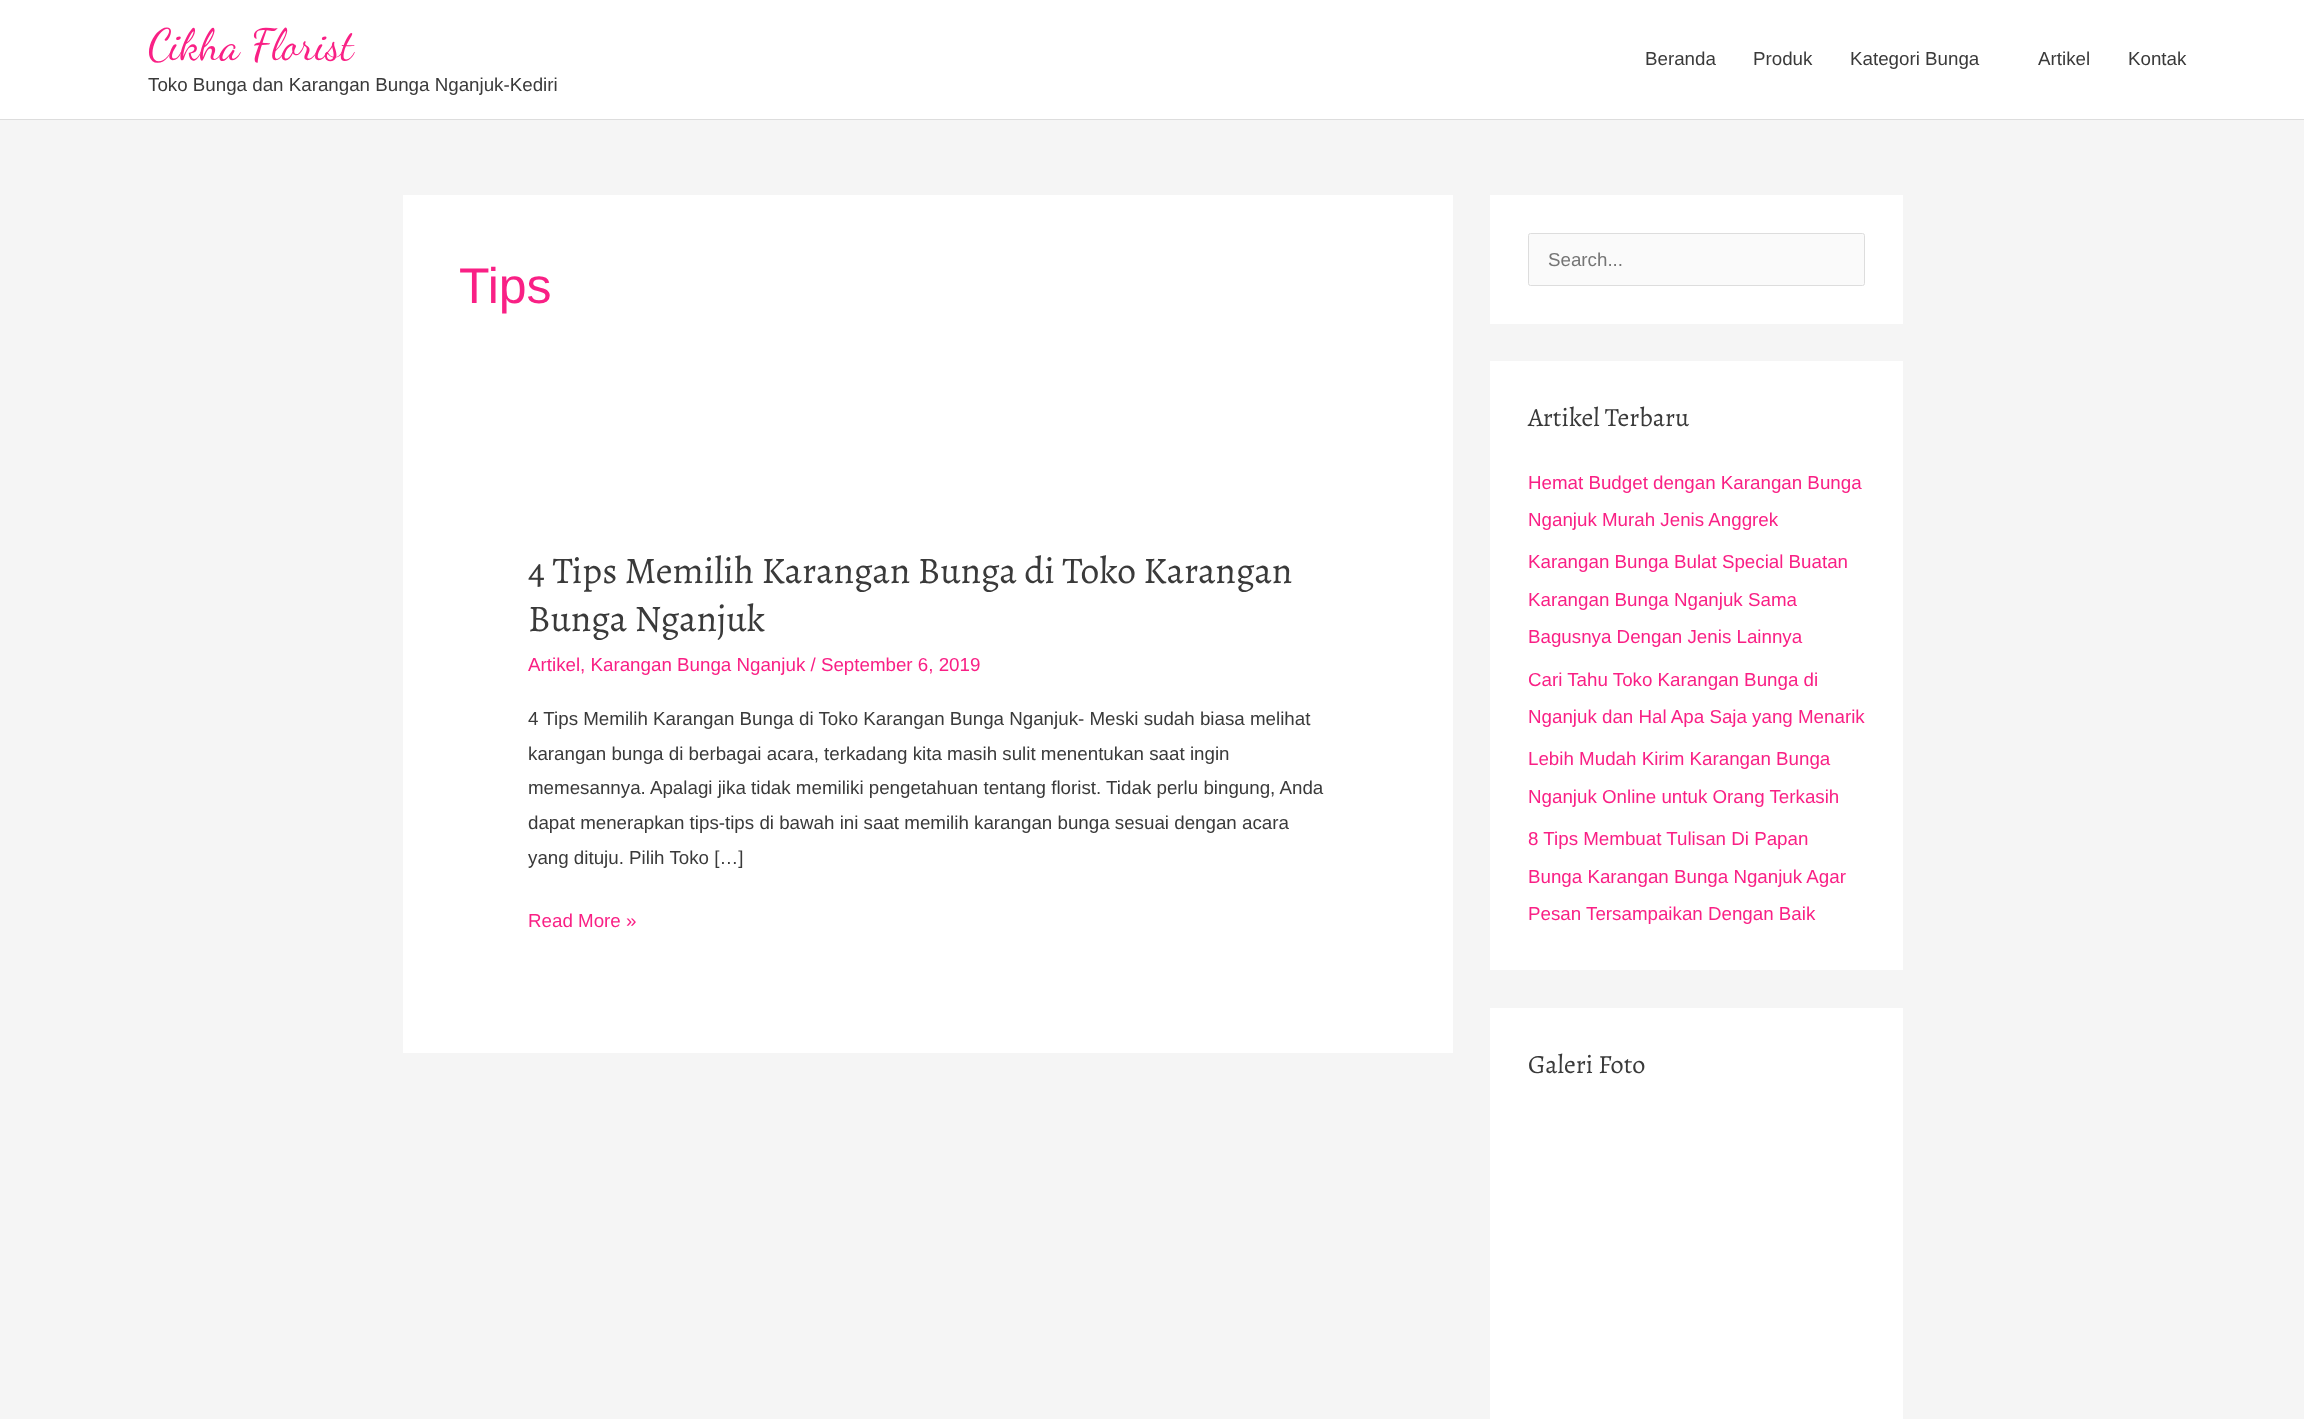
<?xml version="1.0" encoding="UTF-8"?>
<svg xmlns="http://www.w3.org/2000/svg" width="2304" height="1419">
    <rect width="100%" height="100%" fill="#F5F5F5"/>
    <rect x="0" y="0" width="2304" height="119" fill="#FFFFFF"/>
    <rect x="0" y="119" width="2304" height="1" fill="#DDDDDD"/>
    <text x="148" y="59" font-family="Dancing Script" font-size="43.75" fill="#F92085">Cikha Florist</text>
    <text x="148" y="91" font-family="Liberation Sans" font-size="18.75" fill="#3A3A3A">Toko Bunga dan Karangan Bunga Nganjuk-Kediri</text>
    <text x="1645" y="65" font-family="Liberation Sans" font-size="18.75" fill="#3A3A3A">Beranda</text>
    <text x="1753" y="65" font-family="Liberation Sans" font-size="18.75" fill="#3A3A3A">Produk</text>
    <text x="1850" y="65" font-family="Liberation Sans" font-size="18.75" fill="#3A3A3A">Kategori Bunga</text>
    <text x="2038" y="65" font-family="Liberation Sans" font-size="18.75" fill="#3A3A3A">Artikel</text>
    <text x="2128" y="65" font-family="Liberation Sans" font-size="18.75" fill="#3A3A3A">Kontak</text>
    <rect x="403" y="195" width="1050" height="858" fill="#FFFFFF"/>
    <text x="459" y="303" font-family="Liberation Sans" font-size="50" fill="#F92085">Tips</text>
    <text font-family="Alegreya" font-size="37.5" fill="#3A3A3A">
        <tspan x="528" y="583">4 Tips Memilih Karangan Bunga di Toko Karangan</tspan>
        <tspan x="528" y="631">Bunga Nganjuk</tspan>
    </text>
    <text x="528" y="671" font-family="Liberation Sans" font-size="18.75" fill="#F92085">Artikel, Karangan Bunga Nganjuk / September 6, 2019</text>
    <text font-family="Liberation Sans" font-size="18.75" fill="#3A3A3A">
        <tspan x="528" y="725">4 Tips Memilih Karangan Bunga di Toko Karangan Bunga Nganjuk- Meski sudah biasa melihat</tspan>
        <tspan x="528" y="760">karangan bunga di berbagai acara, terkadang kita masih sulit menentukan saat ingin</tspan>
        <tspan x="528" y="794">memesannya. Apalagi jika tidak memiliki pengetahuan tentang florist. Tidak perlu bingung, Anda</tspan>
        <tspan x="528" y="829">dapat menerapkan tips-tips di bawah ini saat memilih karangan bunga sesuai dengan acara</tspan>
        <tspan x="528" y="864">yang dituju. Pilih Toko […]</tspan>
    </text>
    <text x="528" y="927" font-family="Liberation Sans" font-size="18.75" fill="#F92085">Read More »</text>
    <rect x="1490" y="195" width="413" height="129" fill="#FFFFFF"/>
    <rect x="1528.5" y="233.5" width="336" height="52" rx="2" fill="#FAFAFA" stroke="#DDDDDD"/>
    <text x="1548" y="266" font-family="Liberation Sans" font-size="18.75" fill="#757575">Search...</text>
    <rect x="1490" y="361" width="413" height="609" fill="#FFFFFF"/>
    <text x="1528" y="426" font-family="Alegreya" font-size="26.25" fill="#3A3A3A">Artikel Terbaru</text>
    <text font-family="Liberation Sans" font-size="18.75" fill="#F92085">
        <tspan x="1528" y="489">Hemat Budget dengan Karangan Bunga</tspan>
        <tspan x="1528" y="526">Nganjuk Murah Jenis Anggrek</tspan>
    </text>
    <text x="1528" y="568" font-family="Liberation Sans" font-size="18.75" fill="#F92085">Karangan Bunga Bulat Special Buatan</text>
    <text font-family="Liberation Sans" font-size="18.75" fill="#F92085">
        <tspan x="1528" y="606">Karangan Bunga Nganjuk Sama</tspan>
        <tspan x="1528" y="643">Bagusnya Dengan Jenis Lainnya</tspan>
    </text>
    <text font-family="Liberation Sans" font-size="18.75" fill="#F92085">
        <tspan x="1528" y="686">Cari Tahu Toko Karangan Bunga di</tspan>
        <tspan x="1528" y="723">Nganjuk dan Hal Apa Saja yang Menarik</tspan>
    </text>
    <text x="1528" y="765" font-family="Liberation Sans" font-size="18.75" fill="#F92085">Lebih Mudah Kirim Karangan Bunga</text>
    <text x="1528" y="803" font-family="Liberation Sans" font-size="18.75" fill="#F92085">Nganjuk Online untuk Orang Terkasih</text>
    <text x="1528" y="845" font-family="Liberation Sans" font-size="18.75" fill="#F92085">8 Tips Membuat Tulisan Di Papan</text>
    <text font-family="Liberation Sans" font-size="18.75" fill="#F92085">
        <tspan x="1528" y="883">Bunga Karangan Bunga Nganjuk Agar</tspan>
        <tspan x="1528" y="920">Pesan Tersampaikan Dengan Baik</tspan>
    </text>
    <rect x="1490" y="1008" width="413" height="411" fill="#FFFFFF"/>
    <text x="1528" y="1073" font-family="Alegreya" font-size="26.25" fill="#3A3A3A">Galeri Foto</text>
</svg>
